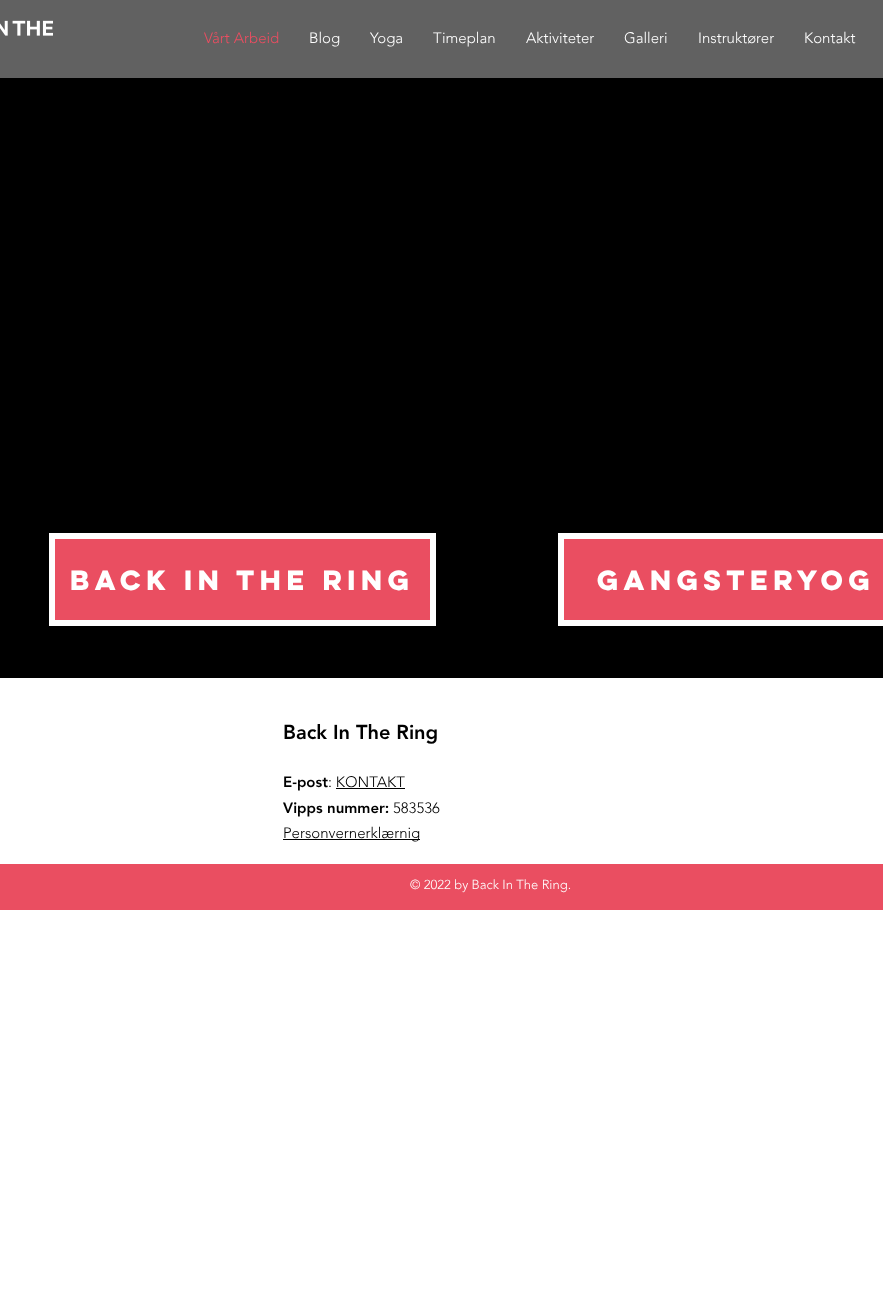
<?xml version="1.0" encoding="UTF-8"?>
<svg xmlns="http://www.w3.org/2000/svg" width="883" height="1293">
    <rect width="100%" height="100%" fill="#FFFFFF"/>
    <rect x="0" y="0" width="883" height="78" fill="#616161"/>
    <image x="0" y="20" width="53" height="16" href="img_01.png"/>
    <text x="204" y="43" font-family="'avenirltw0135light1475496'" font-size="15" font-weight="300" fill="#EA4E61">Vårt Arbeid</text>
    <text x="309" y="43" font-family="'avenirltw0135light1475496'" font-size="15" font-weight="300" fill="#FFFFFF">Blog</text>
    <text x="370" y="43" font-family="'avenirltw0135light1475496'" font-size="15" font-weight="300" fill="#FFFFFF">Yoga</text>
    <text x="433" y="43" font-family="'avenirltw0135light1475496'" font-size="15" font-weight="300" fill="#FFFFFF">Timeplan</text>
    <text x="526" y="43" font-family="'avenirltw0135light1475496'" font-size="15" font-weight="300" fill="#FFFFFF">Aktiviteter</text>
    <text x="624" y="43" font-family="'avenirltw0135light1475496'" font-size="15" font-weight="300" fill="#FFFFFF">Galleri</text>
    <text x="698" y="43" font-family="'avenirltw0135light1475496'" font-size="15" font-weight="300" fill="#FFFFFF">Instruktører</text>
    <text x="804" y="43" font-family="'avenirltw0135light1475496'" font-size="15" font-weight="300" fill="#FFFFFF">Kontakt</text>
    <rect x="0" y="78" width="883" height="600" fill="#000000"/>
    <rect x="52" y="536" width="381" height="87" fill="#EA4E61" stroke="#FFFFFF" stroke-width="6"/>
    <text x="70" y="590" font-family="'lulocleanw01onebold'" font-size="25" font-weight="700" fill="#FFFFFF">BACK IN THE RING</text>
    <rect x="561" y="536" width="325" height="87" fill="#EA4E61" stroke="#FFFFFF" stroke-width="6"/>
    <text x="597" y="590" font-family="'lulocleanw01onebold'" font-size="25" font-weight="700" fill="#FFFFFF">GANGSTERYOG</text>
    <text x="283" y="739" font-family="'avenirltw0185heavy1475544'" font-size="20" font-weight="900" fill="#000000">Back In The Ring</text>
    <text x="283" y="787" font-family="'avenirltw0185heavy1475544'" font-size="15" font-weight="900" fill="#000000">E-post</text>
    <text x="328" y="787" font-family="'avenirltw0135light1475496'" font-size="15" font-weight="300" fill="#000000">: KONTAKT</text>
    <rect x="336" y="788" width="69" height="1" fill="#000000"/>
    <text x="283" y="813" font-family="'avenirltw0185heavy1475544'" font-size="15" font-weight="900" fill="#000000">Vipps nummer:</text>
    <text x="393" y="813" font-family="'avenirltw0135light1475496'" font-size="15" font-weight="300" fill="#000000">583536</text>
    <rect x="283" y="839" width="137" height="1" fill="#000000"/>
    <text x="283" y="838" font-family="'avenirltw0135light1475496'" font-size="15" font-weight="300" fill="#000000">Personvernerklærnig</text>
    <rect x="0" y="864" width="883" height="46" fill="#EA4E61"/>
    <text x="410" y="889" font-family="'avenirltw0135light1475496'" font-size="13" font-weight="300" fill="#FFFFFF">© 2022 by Back In The Ring.</text>
</svg>
